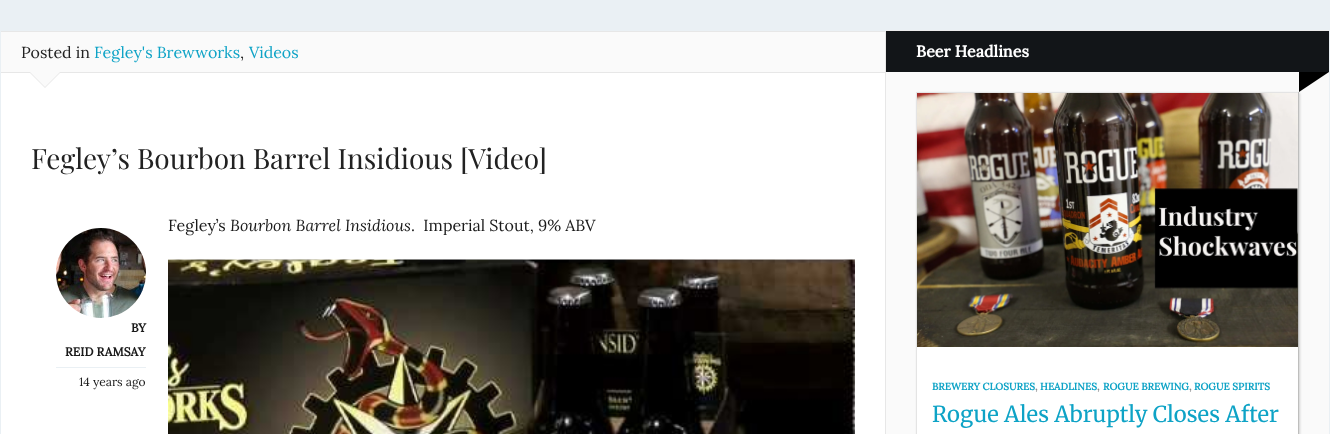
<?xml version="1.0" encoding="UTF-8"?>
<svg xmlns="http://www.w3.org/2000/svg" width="1330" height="434">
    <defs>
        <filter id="blur1" x="-50%" y="-200%" width="200%" height="500%"><feGaussianBlur stdDeviation="1"/></filter>
    </defs>
    <rect width="100%" height="100%" fill="#FFFFFF"/>
    <rect x="0.5" y="0.5" width="1329" height="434" fill="none" stroke="#EAF0F4"/>
    <rect x="1" y="1" width="1328" height="30" fill="#EAF0F4"/>
    <rect x="885" y="31" width="1" height="403" fill="#E7E7E7"/>
    <rect x="1" y="32" width="884" height="40" fill="#FAFAFA"/>
    <rect x="1" y="31" width="884" height="1" fill="#E7E7E7"/>
    <rect x="1" y="72" width="884" height="1" fill="#E7E7E7"/>
    <text x="21" y="58" font-family="Lora" font-size="16" fill="#222222">Posted in</text>
    <text x="94" y="58" font-family="Lora" font-size="16" fill="#0EA3C6">Fegley's Brewworks</text>
    <text x="240" y="58" font-family="Lora" font-size="16" fill="#222222">,</text>
    <text x="249" y="58" font-family="Lora" font-size="16" fill="#0EA3C6">Videos</text>
    <path d="M 29 72 H 61 L 45 88 Z" fill="#E7E7E7"/>
    <path d="M 30 72 H 60 L 45 87 Z" fill="#FAFAFA"/>
    <text x="31" y="169" font-family="Playfair Display" font-size="28" fill="#222222">Fegley’s Bourbon Barrel Insidious [Video]</text>
    <text x="168" y="231" font-family="Lora" font-size="16" fill="#1A1A1A">Fegley’s</text>
    <text x="230" y="231" font-family="Lora" font-size="16" font-style="italic" fill="#1A1A1A">Bourbon Barrel Insidious</text>
    <text x="411" y="231" font-family="Lora" font-size="16" fill="#1A1A1A" xml:space="preserve">.  Imperial Stout, 9% ABV</text>
    <image x="168" y="259" width="687" height="175" href="img_01.png"/>
    <rect x="168" y="259" width="687" height="1" fill="#FFFFFF" fill-opacity="0.5"/>
    <image x="56" y="228" width="90" height="90" href="img_02.png"/>
    <text x="131" y="332" font-family="Lora" font-size="12" font-weight="700" fill="#1A1A1A">BY</text>
    <text x="65" y="356" font-family="Lora" font-size="12" font-weight="700" fill="#1A1A1A">REID RAMSAY</text>
    <rect x="56" y="367" width="90" height="1" fill="#EAF0F4"/>
    <text x="79" y="386" font-family="Lora" font-size="12" fill="#1A1A1A">14 years ago</text>
    <rect x="886" y="72" width="443" height="362" fill="#FAFAFA"/>
    <rect x="886" y="31" width="443" height="41" fill="#121518"/>
    <rect x="886" y="30" width="443" height="1" fill="#ECECEC"/>
    <text x="916" y="57" font-family="Lora" font-size="16" font-weight="700" fill="#FFFFFF">Beer Headlines</text>
    <rect x="917" y="93" width="383" height="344" fill="#D0D0D0" filter="url(#blur1)"/>
    <path d="M 1299 92 V 72 H 1329 Z" fill="#000000"/>
    <rect x="917" y="347" width="381" height="87" fill="#FFFFFF"/>
    <rect x="916" y="92" width="383" height="1" fill="#E4E4E4"/>
    <rect x="1298" y="92" width="1" height="342" fill="#BEBEBD"/>
    <rect x="916" y="92" width="1" height="342" fill="#E4E4E4"/>
    <image x="917" y="93" width="381" height="254" href="img_03.png"/>
    <text x="932" y="390" font-family="Lora" font-size="10" font-weight="700" fill="#0EA3C6">BREWERY CLOSURES</text>
    <text x="1035" y="390" font-family="Lora" font-size="10" font-weight="700" fill="#8A8C8E">,</text>
    <text x="1040" y="390" font-family="Lora" font-size="10" font-weight="700" fill="#0EA3C6">HEADLINES</text>
    <text x="1097" y="390" font-family="Lora" font-size="10" font-weight="700" fill="#8A8C8E">,</text>
    <text x="1103" y="390" font-family="Lora" font-size="10" font-weight="700" fill="#0EA3C6">ROGUE BREWING</text>
    <text x="1189" y="390" font-family="Lora" font-size="10" font-weight="700" fill="#8A8C8E">,</text>
    <text x="1194" y="390" font-family="Lora" font-size="10" font-weight="700" fill="#0EA3C6">ROGUE SPIRITS</text>
    <text x="932" y="422" font-family="Merriweather" font-size="22" fill="#0EA3C6">Rogue Ales Abruptly Closes After</text>
</svg>
